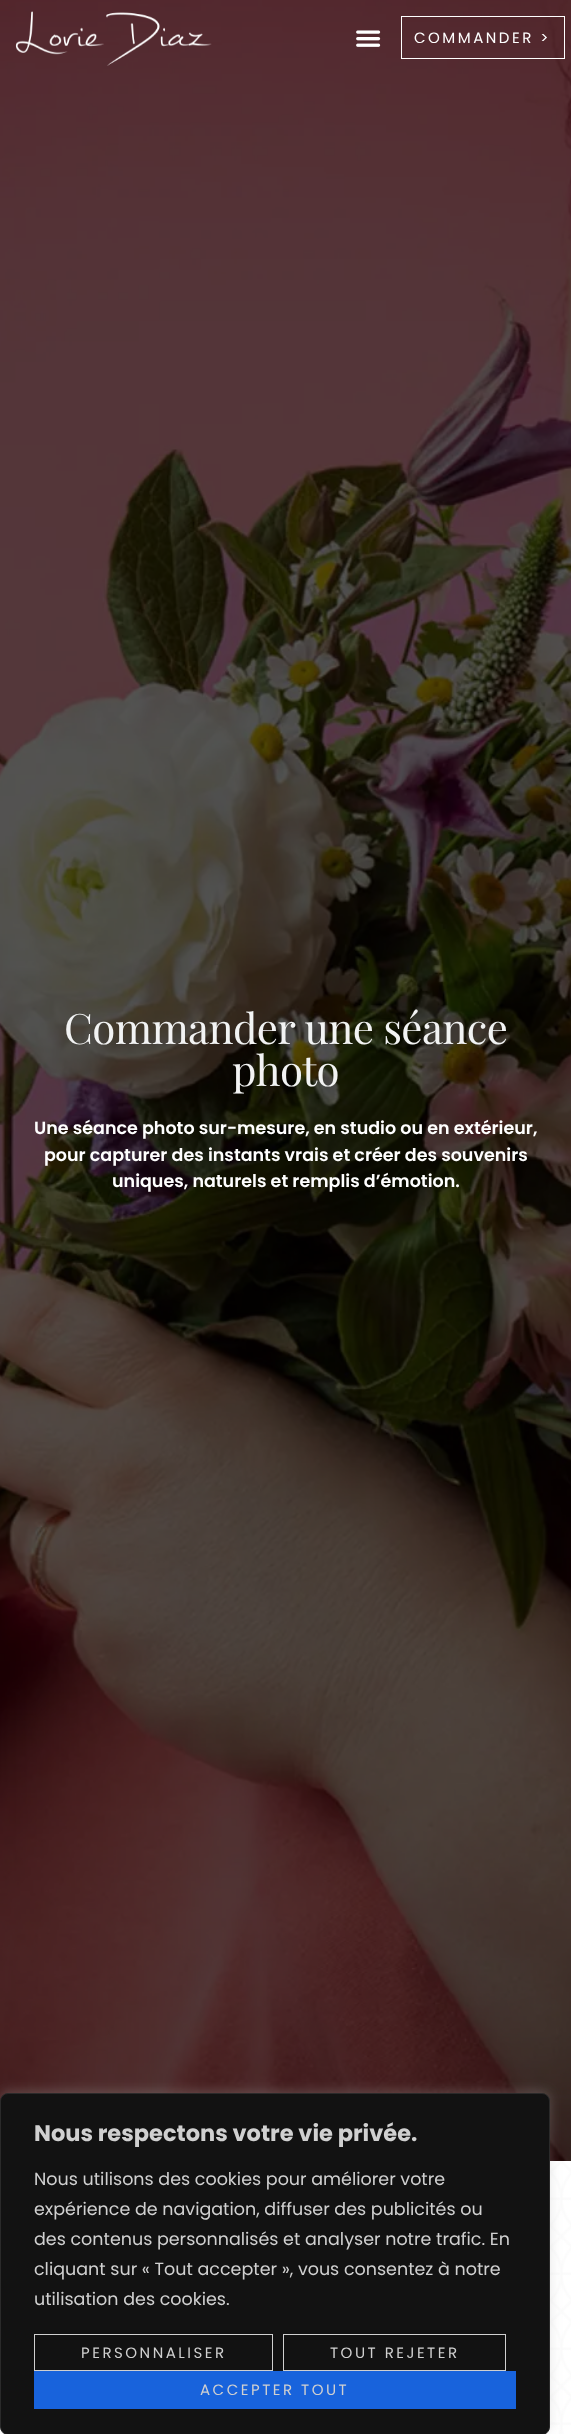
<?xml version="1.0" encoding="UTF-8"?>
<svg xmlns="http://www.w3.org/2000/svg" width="571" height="2434">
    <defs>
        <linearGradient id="g1" gradientUnits="userSpaceOnUse" x1="-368" y1="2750" x2="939" y2="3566"><stop offset="1" stop-color="#FFFFFF" stop-opacity="0.97"/><stop offset="1" stop-color="#FFFFFF" stop-opacity="0.75"/></linearGradient>
        <filter id="blur1" x="-50%" y="-200%" width="200%" height="500%"><feGaussianBlur stdDeviation="6"/></filter>
    </defs>
    <rect width="100%" height="100%" fill="#FFFFFF"/>
    <image x="0" y="0" width="571" height="2161" href="img_03.png"/>
    <image x="15" y="11" width="197" height="55" href="img_01.png"/>
    <image x="356" y="30" width="25" height="17" href="img_02.png"/>
    <rect x="401.5" y="16.5" width="163" height="42" fill="none" stroke="#FFFFFF"/>
    <text x="414" y="43" font-family="Poppins" font-size="15" letter-spacing="2.5" fill="#FFFFFF">COMMANDER &gt;</text>
    <text x="64" y="1044" font-family="Playfair Display" font-size="42" letter-spacing="-0.6" fill="#F2F3F3">Commander une séance</text>
    <text x="232" y="1086" font-family="Playfair Display" font-size="42" letter-spacing="-0.6" fill="#F2F3F3">photo</text>
    <text x="34" y="1134" font-family="Poppins" font-size="17.5" font-weight="600" fill="#FFFFFF">Une séance photo sur-mesure, en studio ou en extérieur,</text>
    <text x="44" y="1161" font-family="Poppins" font-size="17.5" font-weight="600" fill="#FFFFFF">pour capturer des instants vrais et créer des souvenirs</text>
    <text x="112" y="1187" font-family="Poppins" font-size="17.5" font-weight="600" fill="#FFFFFF">uniques, naturels et remplis d’émotion.</text>
    <image x="0" y="2161" width="571" height="273" href="img_04.png"/>
    <rect x="0" y="2161" width="571" height="273" fill="url(#g1)"/>
    <rect x="0" y="2091" width="550" height="343" rx="8" fill="#ACABAB" fill-opacity="0.3" filter="url(#blur1)"/>
    <rect x="0.5" y="2093.5" width="549" height="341" rx="7.5" fill="#121212" stroke="#2A2A2A"/>
    <text x="34" y="2141" font-family="Poppins" font-size="22.5" font-weight="700" fill="#D0D0D0">Nous respectons votre vie privée.</text>
    <text font-family="Poppins" font-size="17.5" fill="#D0D0D0">
        <tspan x="34" y="2185">Nous utilisons des cookies pour améliorer votre</tspan>
        <tspan x="34" y="2215">expérience de navigation, diffuser des publicités ou</tspan>
        <tspan x="34" y="2245">des contenus personnalisés et analyser notre trafic. En</tspan>
        <tspan x="34" y="2275">cliquant sur « Tout accepter », vous consentez à notre</tspan>
        <tspan x="34" y="2305">utilisation des cookies.</tspan>
    </text>
    <rect x="34.5" y="2334.5" width="238" height="36" fill="none" stroke="#D0D0D0"/>
    <text x="81" y="2358" font-family="Poppins" font-size="15" letter-spacing="2.5" fill="#D0D0D0">PERSONNALISER</text>
    <rect x="283.5" y="2334.5" width="222" height="36" fill="none" stroke="#D0D0D0"/>
    <text x="330" y="2358" font-family="Poppins" font-size="15" letter-spacing="2.5" fill="#D0D0D0">TOUT REJETER</text>
    <rect x="34" y="2371" width="482" height="38" fill="#1863DC"/>
    <text x="200" y="2395" font-family="Poppins" font-size="15" letter-spacing="2.5" fill="#D0D0D0">ACCEPTER TOUT</text>
</svg>
